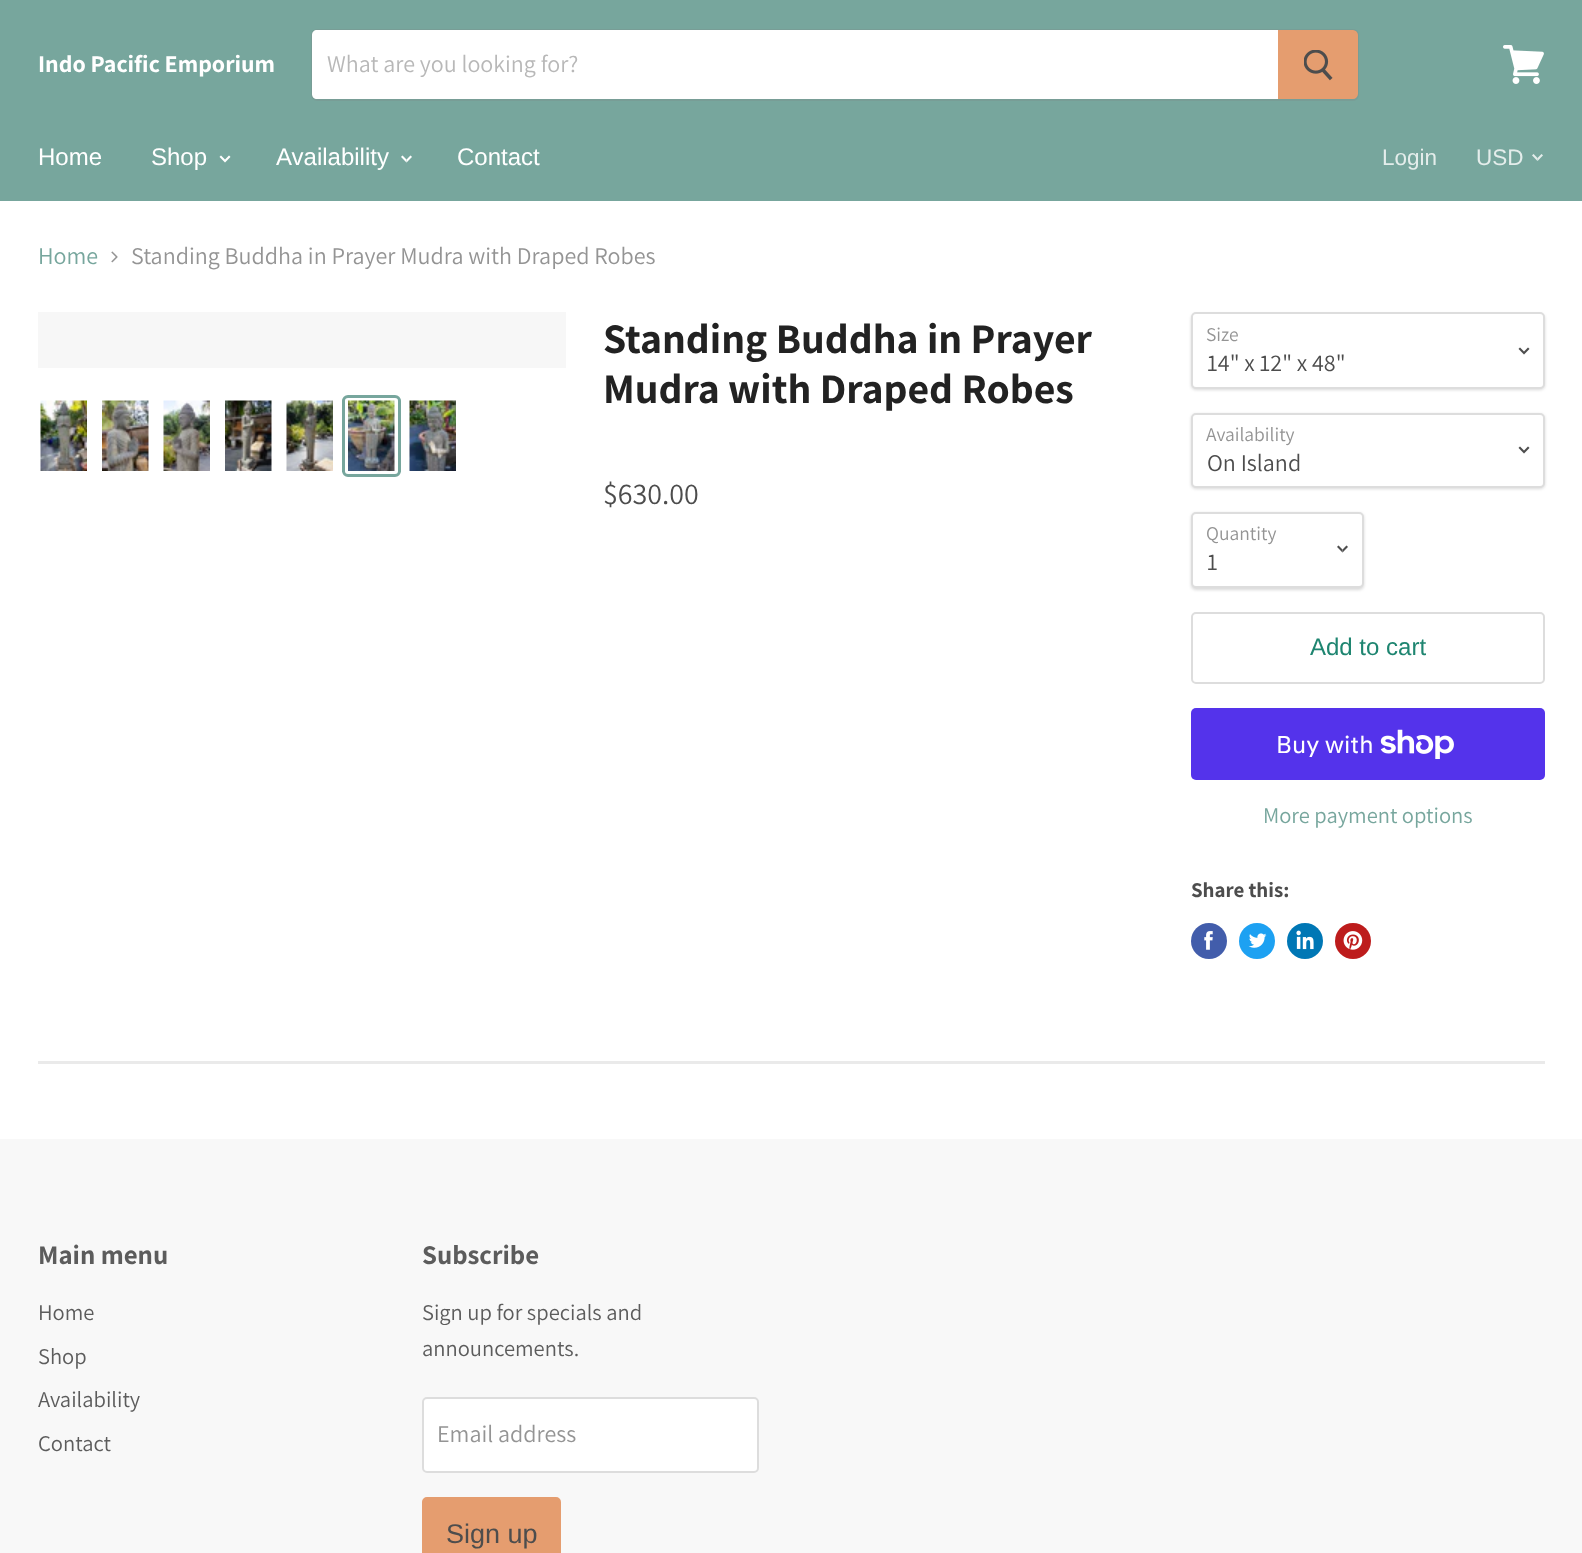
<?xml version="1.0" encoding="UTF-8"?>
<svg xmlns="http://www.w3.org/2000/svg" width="1582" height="1553">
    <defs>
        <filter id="blur1" x="-50%" y="-200%" width="200%" height="500%"><feGaussianBlur stdDeviation="1.5"/></filter>
    </defs>
    <rect width="100%" height="100%" fill="#FFFFFF"/>
    <rect x="0" y="0" width="1582" height="201" fill="#77A69D"/>
    <text x="38" y="72" font-family="Assistant" font-size="24" font-weight="700" fill="#FFFFFF">Indo Pacific Emporium</text>
    <rect x="312" y="30" width="1046" height="70" rx="5" fill="none" stroke="#7F7F7F" stroke-opacity="0.2" stroke-width="2"/>
    <path d="M 317 30 H 1278 V 99 H 317 C 314 99 312 97 312 94 V 35 C 312 32 314 30 317 30 Z" fill="#FFFFFF"/>
    <text x="327" y="72" font-family="Assistant" font-size="24" fill="#B8B8B8">What are you looking for?</text>
    <path d="M 1279 31 H 1353 C 1355 31 1357 33 1357 35 V 94 C 1357 96 1355 98 1353 98 H 1279 Z" fill="#E59D6F" stroke="#E59D6F" stroke-width="2"/>
    <image x="1304" y="50" width="29" height="31" href="img_01.png"/>
    <image x="1503" y="45" width="41" height="39" href="img_02.png"/>
    <text x="38" y="165" font-family="Liberation Sans" font-size="24" fill="#FFFFFF">Home</text>
    <text x="151" y="165" font-family="Liberation Sans" font-size="24" fill="#FFFFFF">Shop</text>
    <image x="219" y="155" width="12" height="8" href="img_03.png"/>
    <text x="276" y="165" font-family="Liberation Sans" font-size="24" fill="#FFFFFF">Availability</text>
    <image x="401" y="155" width="11" height="8" href="img_04.png"/>
    <text x="457" y="165" font-family="Liberation Sans" font-size="24" fill="#FFFFFF">Contact</text>
    <text x="1382" y="165" font-family="Liberation Sans" font-size="22.5" fill="#E4EDEB">Login</text>
    <text x="1476" y="165" font-family="Liberation Sans" font-size="22.5" fill="#E4EDEB">USD</text>
    <image x="1532" y="154" width="11" height="7" href="img_05.png"/>
    <text x="38" y="264" font-family="Assistant" font-size="24" fill="#77A69D">Home</text>
    <image x="111" y="251" width="7" height="12" href="img_06.png"/>
    <text x="131" y="264" font-family="Assistant" font-size="24" fill="#949494">Standing Buddha in Prayer Mudra with Draped Robes</text>
    <rect x="38" y="312" width="528" height="56" fill="#F7F7F7"/>
    <image x="40" y="400" width="47" height="71" href="img_07.png"/>
    <image x="102" y="400" width="47" height="71" href="img_08.png"/>
    <image x="163" y="400" width="47" height="71" href="img_09.png"/>
    <image x="225" y="400" width="47" height="71" href="img_10.png"/>
    <image x="286" y="400" width="47" height="71" href="img_11.png"/>
    <rect x="343.5" y="396.5" width="56" height="79" rx="4.5" fill="none" stroke="#77A69D" stroke-width="3"/>
    <image x="348" y="400" width="47" height="71" href="img_12.png"/>
    <image x="409" y="400" width="47" height="71" href="img_13.png"/>
    <text font-family="Assistant" font-size="42" font-weight="700" fill="#222222">
        <tspan x="603" y="353">Standing Buddha in Prayer</tspan>
        <tspan x="603" y="403">Mudra with Draped Robes</tspan>
    </text>
    <text x="603" y="504" font-family="Assistant" font-size="30" fill="#4D4D4D">$630.00</text>
    <rect x="1191" y="314" width="354" height="76" rx="5" fill="#000000" fill-opacity="0.15" filter="url(#blur1)"/>
    <rect x="1192" y="313" width="352" height="75" rx="4" fill="#FFFFFF" stroke="#DDDDDD" stroke-width="2"/>
    <text x="1206" y="341" font-family="Assistant" font-size="19.5" fill="#949494">Size</text>
    <image x="1518" y="347" width="12" height="8" href="img_14.png"/>
    <text x="1207" y="371" font-family="Assistant" font-size="24" fill="#4D4D4D">14" x 12" x 48"</text>
    <rect x="1191" y="414" width="354" height="75" rx="5" fill="#000000" fill-opacity="0.15" filter="url(#blur1)"/>
    <rect x="1192" y="414" width="352" height="73" rx="4" fill="#FFFFFF" stroke="#DDDDDD" stroke-width="2"/>
    <text x="1206" y="441" font-family="Assistant" font-size="19.5" fill="#949494">Availability</text>
    <image x="1518" y="446" width="12" height="8" href="img_14.png"/>
    <text x="1207" y="471" font-family="Assistant" font-size="24" fill="#4D4D4D">On Island</text>
    <rect x="1191" y="513" width="173" height="77" rx="5" fill="#000000" fill-opacity="0.15" filter="url(#blur1)"/>
    <rect x="1192" y="513" width="171" height="74" rx="4" fill="#FFFFFF" stroke="#DDDDDD" stroke-width="2"/>
    <text x="1206" y="540" font-family="Assistant" font-size="19.5" fill="#949494">Quantity</text>
    <image x="1337" y="545" width="11" height="8" href="img_15.png"/>
    <text x="1207" y="570" font-family="Assistant" font-size="24" fill="#4D4D4D">1</text>
    <rect x="1192" y="613" width="352" height="70" rx="4" fill="none" stroke="#DDDDDD" stroke-width="2"/>
    <text x="1310" y="655" font-family="Liberation Sans" font-size="24" fill="#1E8570">Add to cart</text>
    <rect x="1191" y="708" width="354" height="72" rx="5" fill="#5433EB"/>
    <text x="1276" y="753" font-family="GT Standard" font-size="24" fill="#FFFFFF">Buy with</text>
    <image x="1380" y="729" width="74" height="30" href="img_16.png"/>
    <text x="1263" y="823" font-family="Assistant" font-size="22.5" fill="#77A69D">More payment options</text>
    <text x="1191" y="897" font-family="Assistant" font-size="21" font-weight="700" fill="#4D4D4D">Share this:</text>
    <circle cx="1209" cy="941" r="18" fill="#425DAB"/>
    <image x="1204" y="931" width="9" height="19" href="img_17.png"/>
    <circle cx="1257" cy="941" r="18" fill="#1DA1F2"/>
    <image x="1248" y="933" width="19" height="15" href="img_18.png"/>
    <circle cx="1305" cy="941" r="18" fill="#0077B5"/>
    <image x="1296" y="930" width="18" height="20" href="img_19.png"/>
    <circle cx="1353" cy="941" r="18" fill="#BD1C1C"/>
    <image x="1343" y="931" width="20" height="19" href="img_20.png"/>
    <rect x="38" y="1061" width="1507" height="3" fill="#7F7F7F" fill-opacity="0.16"/>
    <rect x="0" y="1139" width="1582" height="414" fill="#F8F8F8"/>
    <text x="38" y="1264" font-family="Assistant" font-size="27" font-weight="700" fill="#5C5C5C">Main menu</text>
    <text font-family="Assistant" font-size="22.5" fill="#5C5C5C">
        <tspan x="38" y="1320">Home</tspan>
        <tspan x="38" y="1364">Shop</tspan>
        <tspan x="38" y="1407">Availability</tspan>
        <tspan x="38" y="1451">Contact</tspan>
    </text>
    <text x="422" y="1264" font-family="Assistant" font-size="27" font-weight="700" fill="#5C5C5C">Subscribe</text>
    <text font-family="Assistant" font-size="22.5" fill="#5C5C5C">
        <tspan x="422" y="1320">Sign up for specials and</tspan>
        <tspan x="422" y="1356">announcements.</tspan>
    </text>
    <rect x="423" y="1398" width="335" height="74" rx="4" fill="#FFFFFF" stroke="#DDDDDD" stroke-width="2"/>
    <text x="437" y="1442" font-family="Assistant" font-size="24" fill="#949494">Email address</text>
    <rect x="423" y="1498" width="137" height="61" rx="4" fill="#E59D6F" stroke="#E59D6F" stroke-width="2"/>
    <text x="446" y="1543" font-family="Liberation Sans" font-size="27" fill="#4D4D4D">Sign up</text>
</svg>
